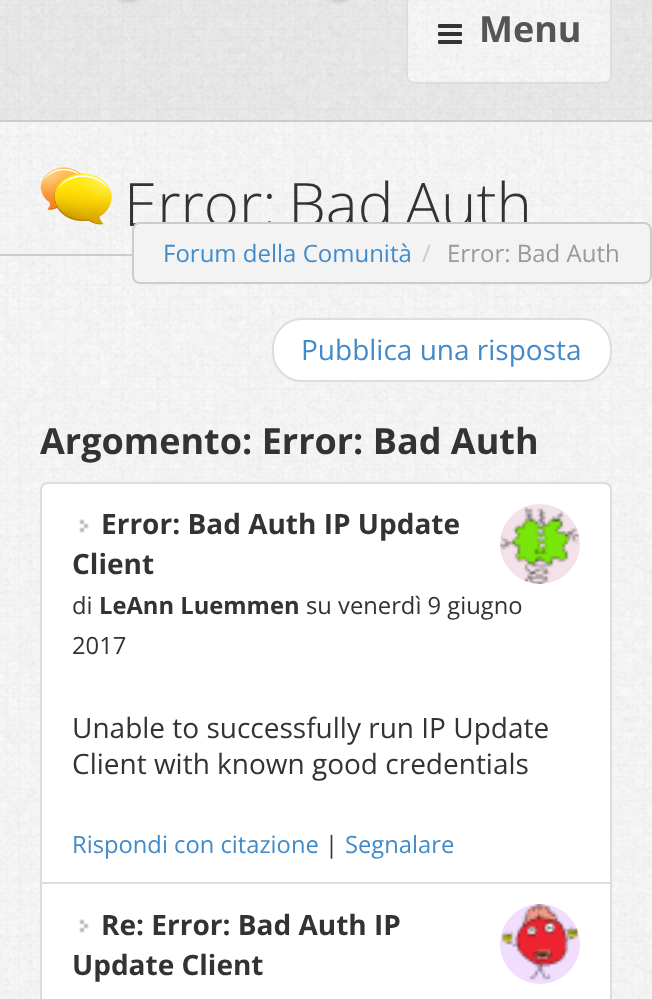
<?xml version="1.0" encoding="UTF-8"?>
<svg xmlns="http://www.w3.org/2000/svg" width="652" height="999">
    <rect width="100%" height="100%" fill="#FFFFFF"/>
    <image x="0" y="0" width="652" height="120" href="img_01.png"/>
    <rect x="0" y="120" width="652" height="2" fill="#CCCCCC"/>
    <image x="118" y="0" width="231" height="4" href="img_02.png"/>
    <image x="406" y="0" width="206" height="84" href="img_03.png"/>
    <rect x="407" y="-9" width="204" height="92" rx="7" fill="none" stroke="#DDDDDD" stroke-width="2"/>
    <image x="438" y="24" width="24" height="20" href="img_04.png"/>
    <text x="479" y="42" font-family="Open Sans" font-size="36" font-weight="700" fill="#555555">Menu</text>
    <image x="0" y="122" width="652" height="877" href="img_05.png"/>
    <rect x="0" y="254" width="132" height="2" fill="#CCCCCC"/>
    <image x="40" y="167" width="72" height="58" href="img_06.png"/>
    <text x="124" y="226" word-spacing="-4" font-family="Open Sans" font-size="60" font-weight="300" fill="#333333">Error: Bad Auth</text>
    <rect x="133" y="223" width="518" height="60" rx="7" fill="#F3F3F3" stroke="#CCCCCC" stroke-width="2"/>
    <text x="163" y="262" font-family="Open Sans" font-size="24" fill="#428BCA">Forum della Comunità</text>
    <text x="422" y="262" font-family="Open Sans" font-size="24" fill="#CCCCCC">/</text>
    <text x="447" y="262" font-family="Open Sans" font-size="24" fill="#999999">Error: Bad Auth</text>
    <rect x="273" y="319" width="338" height="62" rx="29" fill="#FFFFFF" stroke="#DDDDDD" stroke-width="2"/>
    <text x="301" y="360" font-family="Open Sans" font-size="28" fill="#428BCA">Pubblica una risposta</text>
    <text x="40" y="454" font-family="Open Sans" font-size="36" font-weight="700" fill="#333333">Argomento: Error: Bad Auth</text>
    <path d="M 48 483 H 604 C 608 483 611 486 611 490 V 883 H 41 V 490 C 41 486 44 483 48 483 Z" fill="#FFFFFF" stroke="#DDDDDD" stroke-width="2"/>
    <image x="79" y="519" width="10" height="14" href="img_07.png"/>
    <text x="101" y="534" font-family="Open Sans" font-size="28" font-weight="700" fill="#333333">Error: Bad Auth IP Update</text>
    <image x="500" y="504" width="80" height="80" href="img_08.png"/>
    <text x="72" y="574" font-family="Open Sans" font-size="28" font-weight="700" fill="#333333">Client</text>
    <text x="72" y="614" font-family="Open Sans" font-size="23.75" fill="#333333">di</text>
    <text x="99" y="614" font-family="Open Sans" font-size="23.75" font-weight="700" fill="#333333">LeAnn Luemmen</text>
    <text x="306" y="614" font-family="Open Sans" font-size="23.75" fill="#333333">su venerdì 9 giugno</text>
    <text x="72" y="654" font-family="Open Sans" font-size="23.75" fill="#333333">2017</text>
    <text font-family="Open Sans" font-size="28" fill="#333333">
        <tspan x="72" y="738">Unable to successfully run IP Update</tspan>
        <tspan x="72" y="774">Client with known good credentials</tspan>
    </text>
    <text x="72" y="853" font-family="Open Sans" font-size="23.75" fill="#428BCA">Rispondi con citazione</text>
    <text x="325" y="853" font-family="Open Sans" font-size="23.75" fill="#333333">|</text>
    <text x="345" y="853" font-family="Open Sans" font-size="23.75" fill="#428BCA">Segnalare</text>
    <rect x="41" y="883" width="570" height="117" fill="#FFFFFF" stroke="#DDDDDD" stroke-width="2"/>
    <image x="79" y="919" width="10" height="14" href="img_07.png"/>
    <text x="101" y="935" font-family="Open Sans" font-size="28" font-weight="700" fill="#333333">Re: Error: Bad Auth IP</text>
    <image x="500" y="904" width="80" height="80" href="img_09.png"/>
    <text x="72" y="975" font-family="Open Sans" font-size="28" font-weight="700" fill="#333333">Update Client</text>
</svg>
